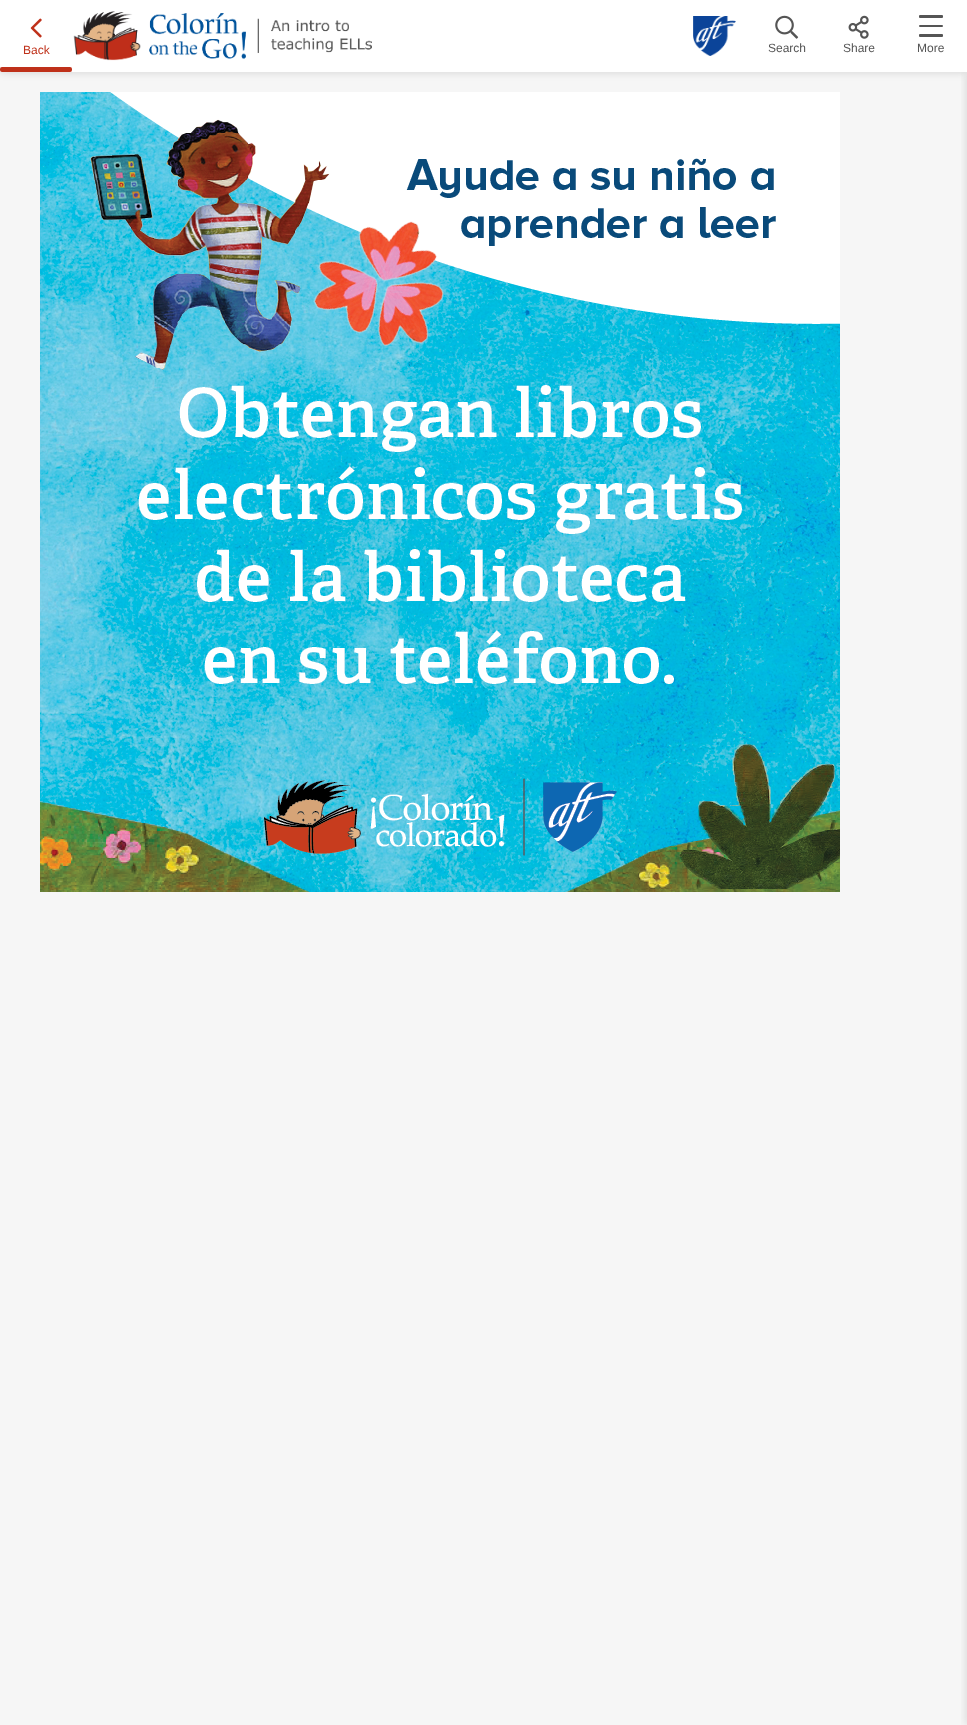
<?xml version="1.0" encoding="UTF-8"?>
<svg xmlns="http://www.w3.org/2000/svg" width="967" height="1725">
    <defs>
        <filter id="blur1" x="-50%" y="-200%" width="200%" height="500%"><feGaussianBlur stdDeviation="4"/></filter>
    </defs>
    <rect width="100%" height="100%" fill="#F6F6F6"/>
    <rect x="0" y="0" width="967" height="72" fill="#000000" fill-opacity="0.15" filter="url(#blur1)"/>
    <rect x="967" y="72" width="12" height="1653" fill="#000000" fill-opacity="0.15" filter="url(#blur1)"/>
    <rect x="0" y="0" width="967" height="72" fill="#FFFFFF"/>
    <image x="30" y="18" width="12" height="20" href="img_01.png"/>
    <text x="23" y="54" font-family="Liberation Sans" font-size="12" fill="#BF311A">Back</text>
    <rect x="0" y="67" width="72" height="5" rx="2" fill="#BF311A"/>
    <image x="73" y="11" width="299" height="50" href="img_02.png"/>
    <image x="693" y="16" width="43" height="40" href="img_03.png"/>
    <image x="775" y="15" width="24" height="24" href="img_04.png"/>
    <text x="768" y="52" font-family="Liberation Sans" font-size="12" fill="#555555">Search</text>
    <image x="848" y="15" width="21" height="24" href="img_05.png"/>
    <text x="843" y="52" font-family="Liberation Sans" font-size="12" fill="#555555">Share</text>
    <rect x="919" y="15" width="24" height="3" rx="1" fill="#555555"/>
    <rect x="919" y="25" width="24" height="2" rx="1" fill="#555555"/>
    <rect x="919" y="34" width="24" height="3" rx="1" fill="#555555"/>
    <text x="917" y="52" font-family="Liberation Sans" font-size="12" fill="#555555">More</text>
    <image x="40" y="92" width="800" height="800" href="img_06.png"/>
</svg>
